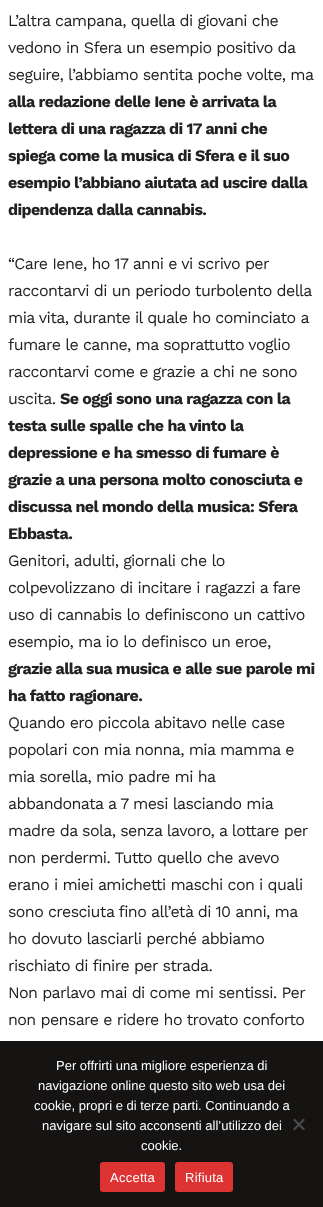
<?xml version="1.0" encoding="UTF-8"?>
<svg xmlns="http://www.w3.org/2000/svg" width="323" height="1207">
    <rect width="100%" height="100%" fill="#FFFFFF"/>
    <text font-family="Work Sans" font-size="16" letter-spacing="-0.6" fill="#222222">
        <tspan x="8" y="26">L’altra campana, quella di giovani che</tspan>
        <tspan x="8" y="53">vedono in Sfera un esempio positivo da</tspan>
        <tspan x="8" y="80">seguire, l’abbiamo sentita poche volte, ma</tspan>
    </text>
    <text font-family="Work Sans" font-size="16" font-weight="700" letter-spacing="-0.6" fill="#222222">
        <tspan x="8" y="107">alla redazione delle Iene è arrivata la</tspan>
        <tspan x="8" y="134">lettera di una ragazza di 17 anni che</tspan>
        <tspan x="8" y="161">spiega come la musica di Sfera e il suo</tspan>
        <tspan x="8" y="188">esempio l’abbiano aiutata ad uscire dalla</tspan>
        <tspan x="8" y="215">dipendenza dalla cannabis.</tspan>
    </text>
    <text font-family="Work Sans" font-size="16" letter-spacing="-0.6" fill="#222222">
        <tspan x="8" y="269">“Care Iene, ho 17 anni e vi scrivo per</tspan>
        <tspan x="8" y="296">raccontarvi di un periodo turbolento della</tspan>
        <tspan x="8" y="323">mia vita, durante il quale ho cominciato a</tspan>
        <tspan x="8" y="350">fumare le canne, ma soprattutto voglio</tspan>
        <tspan x="8" y="377">raccontarvi come e grazie a chi ne sono</tspan>
        <tspan x="8" y="404">uscita.</tspan>
    </text>
    <text x="60" y="404" font-family="Work Sans" font-size="16" font-weight="700" letter-spacing="-0.6" fill="#222222">Se oggi sono una ragazza con la</text>
    <text font-family="Work Sans" font-size="16" font-weight="700" letter-spacing="-0.6" fill="#222222">
        <tspan x="8" y="431">testa sulle spalle che ha vinto la</tspan>
        <tspan x="8" y="458">depressione e ha smesso di fumare è</tspan>
        <tspan x="8" y="485">grazie a una persona molto conosciuta e</tspan>
        <tspan x="8" y="512">discussa nel mondo della musica: Sfera</tspan>
        <tspan x="8" y="539">Ebbasta.</tspan>
    </text>
    <text font-family="Work Sans" font-size="16" letter-spacing="-0.6" fill="#222222">
        <tspan x="8" y="566">Genitori, adulti, giornali che lo</tspan>
        <tspan x="8" y="593">colpevolizzano di incitare i ragazzi a fare</tspan>
        <tspan x="8" y="620">uso di cannabis lo definiscono un cattivo</tspan>
        <tspan x="8" y="647">esempio, ma io lo definisco un eroe,</tspan>
    </text>
    <text font-family="Work Sans" font-size="16" font-weight="700" letter-spacing="-0.6" fill="#222222">
        <tspan x="8" y="674">grazie alla sua musica e alle sue parole mi</tspan>
        <tspan x="8" y="701">ha fatto ragionare.</tspan>
    </text>
    <text font-family="Work Sans" font-size="16" letter-spacing="-0.6" fill="#222222">
        <tspan x="8" y="728">Quando ero piccola abitavo nelle case</tspan>
        <tspan x="8" y="755">popolari con mia nonna, mia mamma e</tspan>
        <tspan x="8" y="782">mia sorella, mio padre mi ha</tspan>
        <tspan x="8" y="809">abbandonata a 7 mesi lasciando mia</tspan>
        <tspan x="8" y="836">madre da sola, senza lavoro, a lottare per</tspan>
        <tspan x="8" y="863">non perdermi. Tutto quello che avevo</tspan>
        <tspan x="8" y="890">erano i miei amichetti maschi con i quali</tspan>
        <tspan x="8" y="917">sono cresciuta fino all’età di 10 anni, ma</tspan>
        <tspan x="8" y="944">ho dovuto lasciarli perché abbiamo</tspan>
        <tspan x="8" y="971">rischiato di finire per strada.</tspan>
        <tspan x="8" y="998">Non parlavo mai di come mi sentissi. Per</tspan>
        <tspan x="8" y="1025">non pensare e ridere ho trovato conforto</tspan>
    </text>
    <rect x="0" y="1041" width="323" height="166" fill="#161313"/>
    <text x="56" y="1070" font-family="Liberation Sans" font-size="13" fill="#FFFFFF">Per offrirti una migliore esperienza di</text>
    <text x="38" y="1090" font-family="Liberation Sans" font-size="13" fill="#FFFFFF">navigazione online questo sito web usa dei</text>
    <text x="34" y="1110" font-family="Liberation Sans" font-size="13" fill="#FFFFFF">cookie, propri e di terze parti. Continuando a</text>
    <text x="42" y="1130" font-family="Liberation Sans" font-size="13" fill="#FFFFFF">navigare sul sito acconsenti all’utilizzo dei</text>
    <text x="141" y="1150" font-family="Liberation Sans" font-size="13" fill="#FFFFFF">cookie.</text>
    <path d="M 303.5 1118.5 L 305 1120 L 294.5 1130.5 L 293 1129 Z" fill="#4B4A4A"/>
    <path d="M 293 1120 L 294.5 1118.5 L 305 1129 L 303.5 1130.5 Z" fill="#4B4A4A"/>
    <rect x="100" y="1162" width="65" height="30" rx="3" fill="#DD3333"/>
    <text x="110" y="1182" font-family="Liberation Sans" font-size="13" letter-spacing="0.25" fill="#FFFFFF">Accetta</text>
    <rect x="175" y="1162" width="58" height="30" rx="3" fill="#DD3333"/>
    <text x="185" y="1182" font-family="Liberation Sans" font-size="13" letter-spacing="0.25" fill="#FFFFFF">Rifiuta</text>
</svg>
